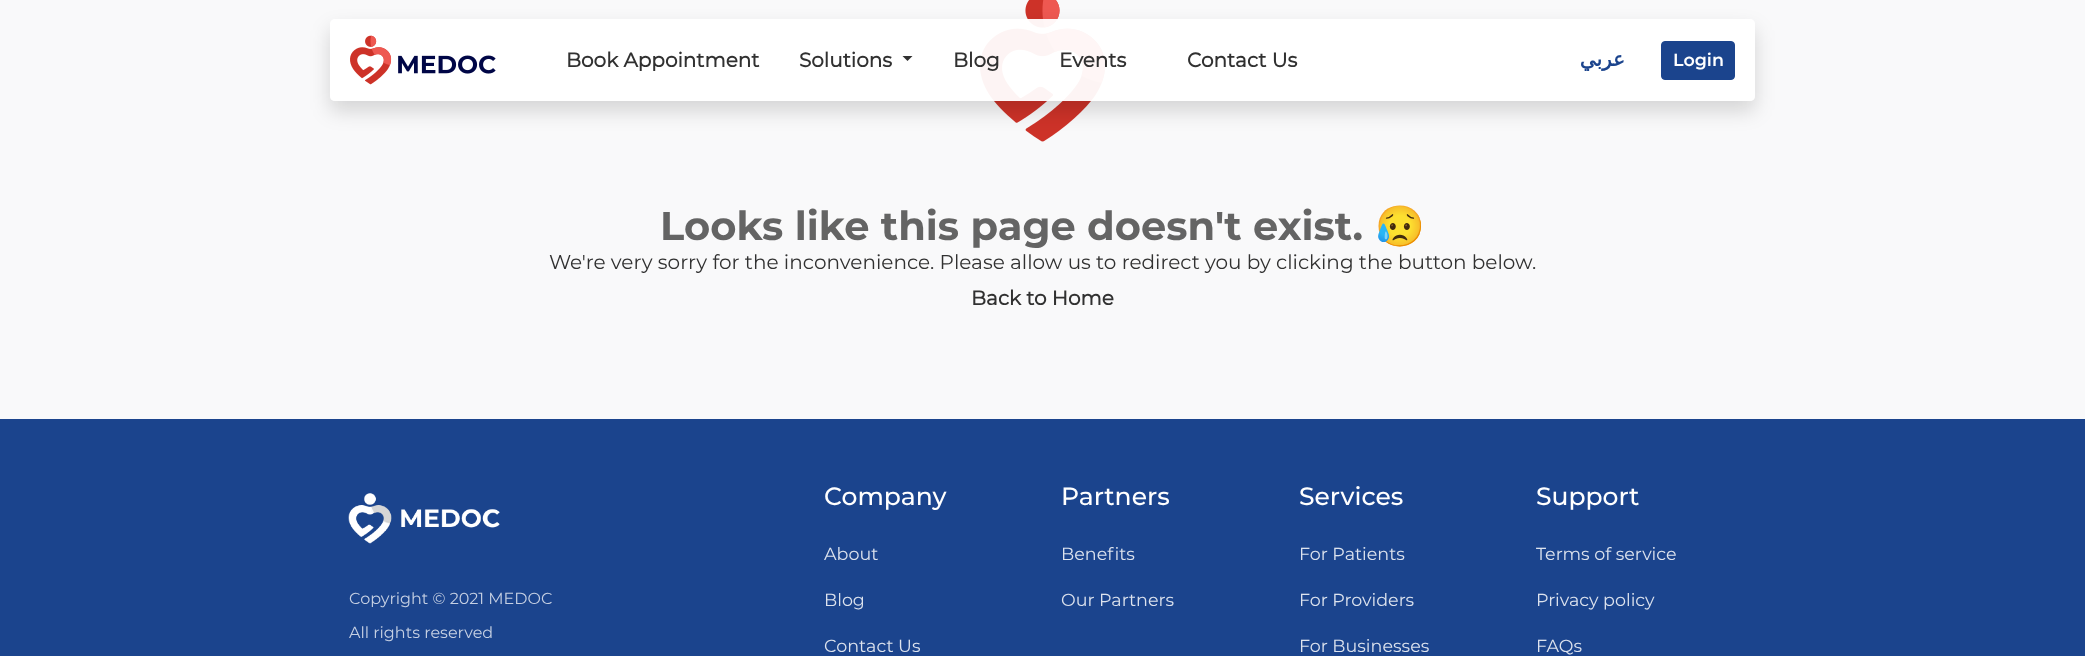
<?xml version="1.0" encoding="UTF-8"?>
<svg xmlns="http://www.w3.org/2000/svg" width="2085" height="656">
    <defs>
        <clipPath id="clip1"><path d="M 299 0 H 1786 V 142 H 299 Z M 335 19 H 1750 C 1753 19 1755 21 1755 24 V 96 C 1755 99 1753 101 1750 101 H 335 C 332 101 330 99 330 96 V 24 C 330 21 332 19 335 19 Z" clip-rule="evenodd"/></clipPath>
        <filter id="blur1" x="-50%" y="-200%" width="200%" height="500%"><feGaussianBlur stdDeviation="10"/></filter>
    </defs>
    <rect width="100%" height="100%" fill="#F9F9FA"/>
    <image x="980" y="0" width="125" height="142" href="img_02.png"/>
    <g clip-path="url(#clip1)">
        <rect x="330" y="29" width="1425" height="82" rx="5" fill="#000000" fill-opacity="0.15" filter="url(#blur1)"/>
    </g>
    <rect x="330" y="19" width="1425" height="82" rx="5" fill="#FFFFFF" fill-opacity="0.95"/>
    <image x="350" y="35" width="146" height="50" href="img_01.png"/>
    <text x="566" y="67" font-family="'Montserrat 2'" font-size="20" font-weight="700" fill="#313131">Book Appointment</text>
    <text x="799" y="67" font-family="'Montserrat 2'" font-size="20" font-weight="700" fill="#313131">Solutions</text>
    <path d="M 902.5 56 H 912.5 L 907.5 61 Z" fill="#313131"/>
    <text x="953" y="67" font-family="'Montserrat 2'" font-size="20" font-weight="700" fill="#313131">Blog</text>
    <text x="1059" y="67" font-family="'Montserrat 2'" font-size="20" font-weight="700" fill="#313131">Events</text>
    <text x="1187" y="67" font-family="'Montserrat 2'" font-size="20" font-weight="700" fill="#313131">Contact Us</text>
    <text x="1625" y="66" font-family="DejaVu Sans" font-size="20" font-weight="700" direction="rtl" fill="#1B448D">عربي</text>
    <rect x="1661.5" y="41.5" width="73" height="38" rx="3.5" fill="#1B448D" stroke="#1B448D"/>
    <text x="1673" y="66" font-family="Montserrat" font-size="17.5" font-weight="600" fill="#FFFFFF">Login</text>
    <text x="660" y="240" font-family="Montserrat" font-size="40" font-weight="700" fill="#646464">Looks like this page doesn't exist.</text>
    <text x="1375" y="240" font-family="Noto Color Emoji" font-size="40" fill="#646464">😥</text>
    <text x="549" y="269" font-family="Montserrat" font-size="20" fill="#313131">We're very sorry for the inconvenience. Please allow us to redirect you by clicking the button below.</text>
    <text x="971" y="305" font-family="'Montserrat 2'" font-size="20" font-weight="700" fill="#313131">Back to Home</text>
    <rect x="0" y="419" width="2085" height="237" fill="#1B448D"/>
    <image x="348" y="493" width="152" height="51" href="img_03.png"/>
    <text x="349" y="604" font-family="Montserrat" font-size="16" fill="#C6D0E3">Copyright © 2021 MEDOC</text>
    <text x="349" y="638" font-family="Montserrat" font-size="16" fill="#C6D0E3">All rights reserved</text>
    <text x="824" y="505" font-family="Montserrat" font-size="25" font-weight="500" fill="#FFFFFF">Company</text>
    <text x="824" y="560" font-family="Montserrat" font-size="17.5" fill="#DDE3EE">About</text>
    <text x="824" y="606" font-family="Montserrat" font-size="17.5" fill="#DDE3EE">Blog</text>
    <text x="824" y="652" font-family="Montserrat" font-size="17.5" fill="#DDE3EE">Contact Us</text>
    <text x="1061" y="505" font-family="Montserrat" font-size="25" font-weight="500" fill="#FFFFFF">Partners</text>
    <text x="1061" y="560" font-family="Montserrat" font-size="17.5" fill="#DDE3EE">Benefits</text>
    <text x="1061" y="606" font-family="Montserrat" font-size="17.5" fill="#DDE3EE">Our Partners</text>
    <text x="1299" y="505" font-family="Montserrat" font-size="25" font-weight="500" fill="#FFFFFF">Services</text>
    <text x="1299" y="560" font-family="Montserrat" font-size="17.5" fill="#DDE3EE">For Patients</text>
    <text x="1299" y="606" font-family="Montserrat" font-size="17.5" fill="#DDE3EE">For Providers</text>
    <text x="1299" y="652" font-family="Montserrat" font-size="17.5" fill="#DDE3EE">For Businesses</text>
    <text x="1536" y="505" font-family="Montserrat" font-size="25" font-weight="500" fill="#FFFFFF">Support</text>
    <text x="1536" y="560" font-family="Montserrat" font-size="17.5" fill="#DDE3EE">Terms of service</text>
    <text x="1536" y="606" font-family="Montserrat" font-size="17.5" fill="#DDE3EE">Privacy policy</text>
    <text x="1536" y="652" font-family="Montserrat" font-size="17.5" fill="#DDE3EE">FAQs</text>
</svg>
